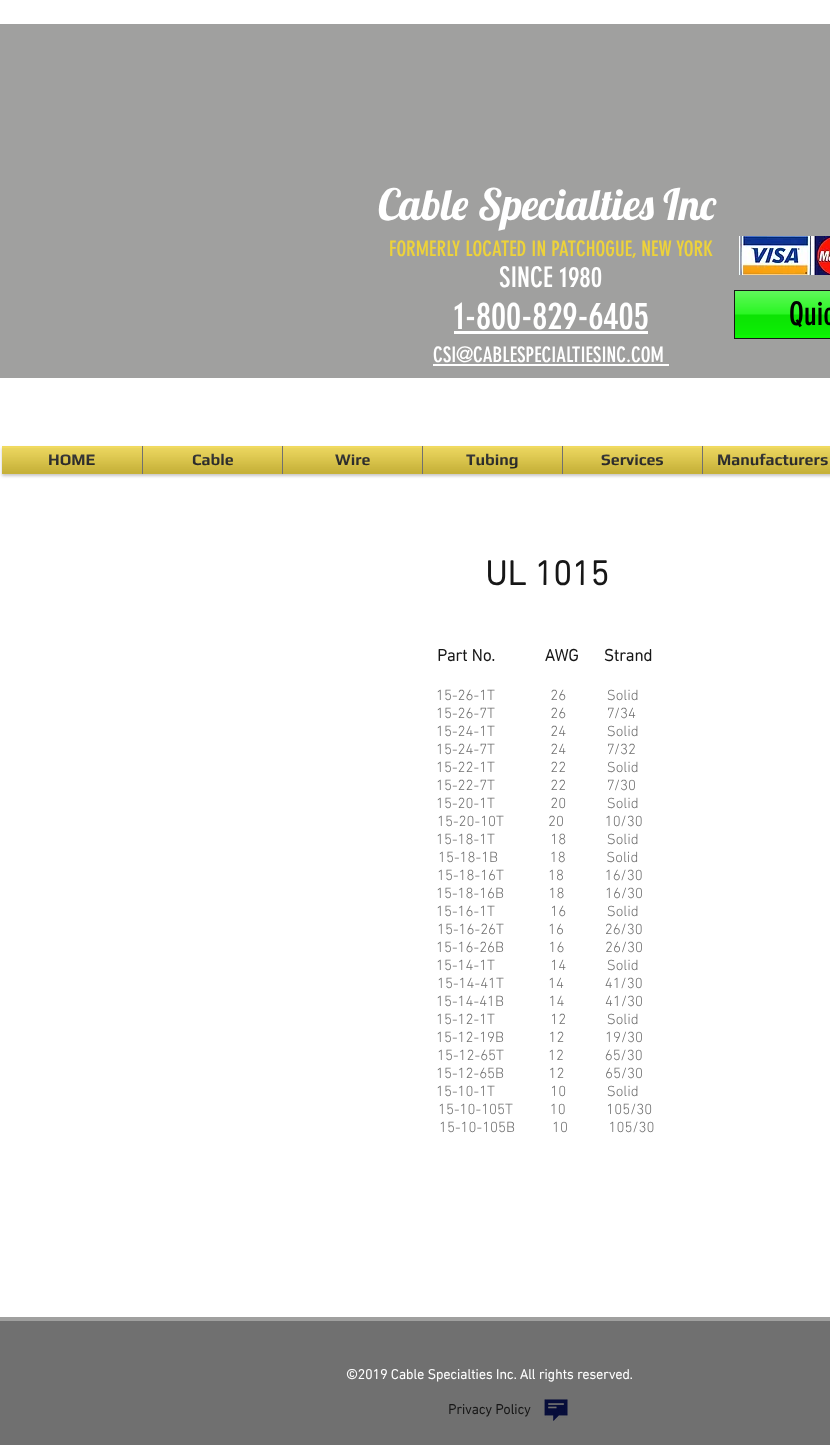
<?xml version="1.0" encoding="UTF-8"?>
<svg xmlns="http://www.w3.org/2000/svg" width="830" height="1445">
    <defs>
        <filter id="blur1" x="-50%" y="-200%" width="200%" height="500%"><feGaussianBlur stdDeviation="1.5"/></filter>
    </defs>
    <rect width="100%" height="100%" fill="#FFFFFF"/>
    <rect x="0" y="24" width="830" height="354" fill="#A0A09F"/>
    <text x="378" y="220" font-family="Lobster" font-size="43" fill="#FFFFFF">Cable Specialties Inc</text>
    <text x="389" y="256" font-family="'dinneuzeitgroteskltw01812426'" font-size="21" fill="#EDD23B">FORMERLY LOCATED IN PATCHOGUE, NEW YORK</text>
    <text x="499" y="287" font-family="'dinneuzeitgroteskltw01812426'" font-size="28" fill="#FFFFFF">SINCE 1980</text>
    <text x="454" y="329" font-family="'dinneuzeitgroteskltw01812426'" font-size="37" fill="#FFFFFF">1-800-829-6405</text>
    <rect x="454" y="331" width="194" height="3" fill="#FFFFFF"/>
    <text x="433" y="362" font-family="'dinneuzeitgroteskltw01812426'" font-size="21" fill="#FFFFFF">CSI@CABLESPECIALTIESINC.COM</text>
    <rect x="433" y="364" width="236" height="2" fill="#FFFFFF"/>
    <image x="739" y="236" width="91" height="39" href="img_01.png"/>
    <rect x="735" y="291" width="95" height="47" fill="#0DF505"/>
    <image x="735" y="291" width="95" height="44" href="img_02.png"/>
    <rect x="734.5" y="290.5" width="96" height="48" fill="none" stroke="#171717"/>
    <text x="789" y="325" font-family="'dinneuzeitgroteskltw01812426'" font-size="32" fill="#000000">Quic</text>
    <rect x="2" y="448" width="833" height="28" fill="#A29E9E" fill-opacity="0.6" filter="url(#blur1)"/>
    <rect x="2" y="446" width="140" height="28" fill="#EDD23B"/>
    <text x="48" y="465" font-family="Play" font-size="16" font-weight="700" fill="#171717">HOME</text>
    <image x="2" y="446" width="140" height="28" href="img_03.png"/>
    <image x="2" y="448" width="140" height="26" href="img_04.png"/>
    <rect x="143" y="446" width="139" height="28" fill="#EDD23B"/>
    <rect x="142" y="446" width="1" height="28" fill="#707070"/>
    <text x="192" y="465" font-family="Play" font-size="16" font-weight="700" fill="#171717">Cable</text>
    <image x="143" y="446" width="139" height="28" href="img_05.png"/>
    <image x="143" y="448" width="139" height="26" href="img_06.png"/>
    <rect x="283" y="446" width="139" height="28" fill="#EDD23B"/>
    <rect x="282" y="446" width="1" height="28" fill="#707070"/>
    <text x="335" y="465" font-family="Play" font-size="16" font-weight="700" fill="#171717">Wire</text>
    <image x="283" y="446" width="139" height="28" href="img_07.png"/>
    <image x="283" y="448" width="139" height="26" href="img_08.png"/>
    <rect x="423" y="446" width="139" height="28" fill="#EDD23B"/>
    <rect x="422" y="446" width="1" height="28" fill="#707070"/>
    <text x="466" y="465" font-family="Play" font-size="16" font-weight="700" fill="#171717">Tubing</text>
    <image x="423" y="446" width="139" height="28" href="img_09.png"/>
    <image x="423" y="448" width="139" height="26" href="img_10.png"/>
    <rect x="563" y="446" width="139" height="28" fill="#EDD23B"/>
    <rect x="562" y="446" width="1" height="28" fill="#707070"/>
    <text x="601" y="465" font-family="Play" font-size="16" font-weight="700" fill="#171717">Services</text>
    <image x="563" y="446" width="139" height="28" href="img_11.png"/>
    <image x="563" y="448" width="139" height="26" href="img_12.png"/>
    <rect x="703" y="446" width="127" height="28" fill="#EDD23B"/>
    <rect x="702" y="446" width="1" height="28" fill="#707070"/>
    <text x="717" y="465" font-family="Play" font-size="16" font-weight="700" fill="#171717">Manufacturers</text>
    <image x="703" y="446" width="127" height="28" href="img_13.png"/>
    <image x="703" y="448" width="127" height="26" href="img_14.png"/>
    <text x="485" y="585" font-family="'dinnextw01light'" font-size="35" font-weight="700" fill="#171717">UL 1015</text>
    <text x="437" y="661" font-family="'dinnextw01light'" font-size="17" font-weight="700" fill="#171717" xml:space="preserve">Part No.            AWG      Strand</text>
    <text font-family="'dinnextw01light'" font-size="15" font-weight="300" fill="#707070" xml:space="preserve"><tspan x="436" y="700">15-26-1T               26           Solid</tspan><tspan x="436" y="718">15-26-7T               26           7/34</tspan><tspan x="436" y="736">15-24-1T               24           Solid</tspan><tspan x="436" y="754">15-24-7T               24           7/32</tspan><tspan x="436" y="772">15-22-1T               22           Solid</tspan><tspan x="436" y="790">15-22-7T               22           7/30</tspan><tspan x="436" y="808">15-20-1T               20           Solid</tspan></text>
    <text x="437" y="826" font-family="'dinnextw01light'" font-size="15" font-weight="300" fill="#707070" xml:space="preserve">15-20-10T            20           10/30</text>
    <text x="436" y="844" font-family="'dinnextw01light'" font-size="15" font-weight="300" fill="#707070" xml:space="preserve">15-18-1T               18           Solid</text>
    <text x="438" y="862" font-family="'dinnextw01light'" font-size="15" font-weight="300" fill="#707070" xml:space="preserve">15-18-1B              18           Solid</text>
    <text x="437" y="880" font-family="'dinnextw01light'" font-size="15" font-weight="300" fill="#707070" xml:space="preserve">15-18-16T            18           16/30</text>
    <text font-family="'dinnextw01light'" font-size="15" font-weight="300" fill="#707070" xml:space="preserve"><tspan x="436" y="898">15-18-16B            18           16/30</tspan><tspan x="436" y="916">15-16-1T               16           Solid</tspan></text>
    <text x="437" y="934" font-family="'dinnextw01light'" font-size="15" font-weight="300" fill="#707070" xml:space="preserve">15-16-26T            16           26/30</text>
    <text font-family="'dinnextw01light'" font-size="15" font-weight="300" fill="#707070" xml:space="preserve"><tspan x="436" y="952">15-16-26B            16           26/30</tspan><tspan x="436" y="970">15-14-1T               14           Solid</tspan></text>
    <text x="437" y="988" font-family="'dinnextw01light'" font-size="15" font-weight="300" fill="#707070" xml:space="preserve">15-14-41T            14           41/30</text>
    <text font-family="'dinnextw01light'" font-size="15" font-weight="300" fill="#707070" xml:space="preserve"><tspan x="436" y="1006">15-14-41B            14           41/30</tspan><tspan x="436" y="1024">15-12-1T               12           Solid</tspan><tspan x="436" y="1042">15-12-19B            12           19/30</tspan></text>
    <text x="437" y="1060" font-family="'dinnextw01light'" font-size="15" font-weight="300" fill="#707070" xml:space="preserve">15-12-65T            12           65/30</text>
    <text font-family="'dinnextw01light'" font-size="15" font-weight="300" fill="#707070" xml:space="preserve"><tspan x="436" y="1078">15-12-65B            12           65/30</tspan><tspan x="436" y="1096">15-10-1T               10           Solid</tspan></text>
    <text x="438" y="1114" font-family="'dinnextw01light'" font-size="15" font-weight="300" fill="#707070" xml:space="preserve">15-10-105T          10           105/30</text>
    <text x="439" y="1132" font-family="'dinnextw01light'" font-size="15" font-weight="300" fill="#707070" xml:space="preserve">15-10-105B          10           105/30</text>
    <rect x="0" y="1317" width="830" height="4" fill="#A0A09F"/>
    <rect x="0" y="1321" width="830" height="124" fill="#707070"/>
    <text x="346" y="1379" font-family="'dinnextw01light'" font-size="14" font-weight="700" fill="#FFFFFF">©2019 Cable Specialties Inc. All rights reserved.</text>
    <text x="448" y="1414" font-family="'dinnextw01light'" font-size="14" font-weight="700" fill="#171717">Privacy Policy</text>
    <image x="544" y="1399" width="24" height="22" href="img_15.png"/>
</svg>
